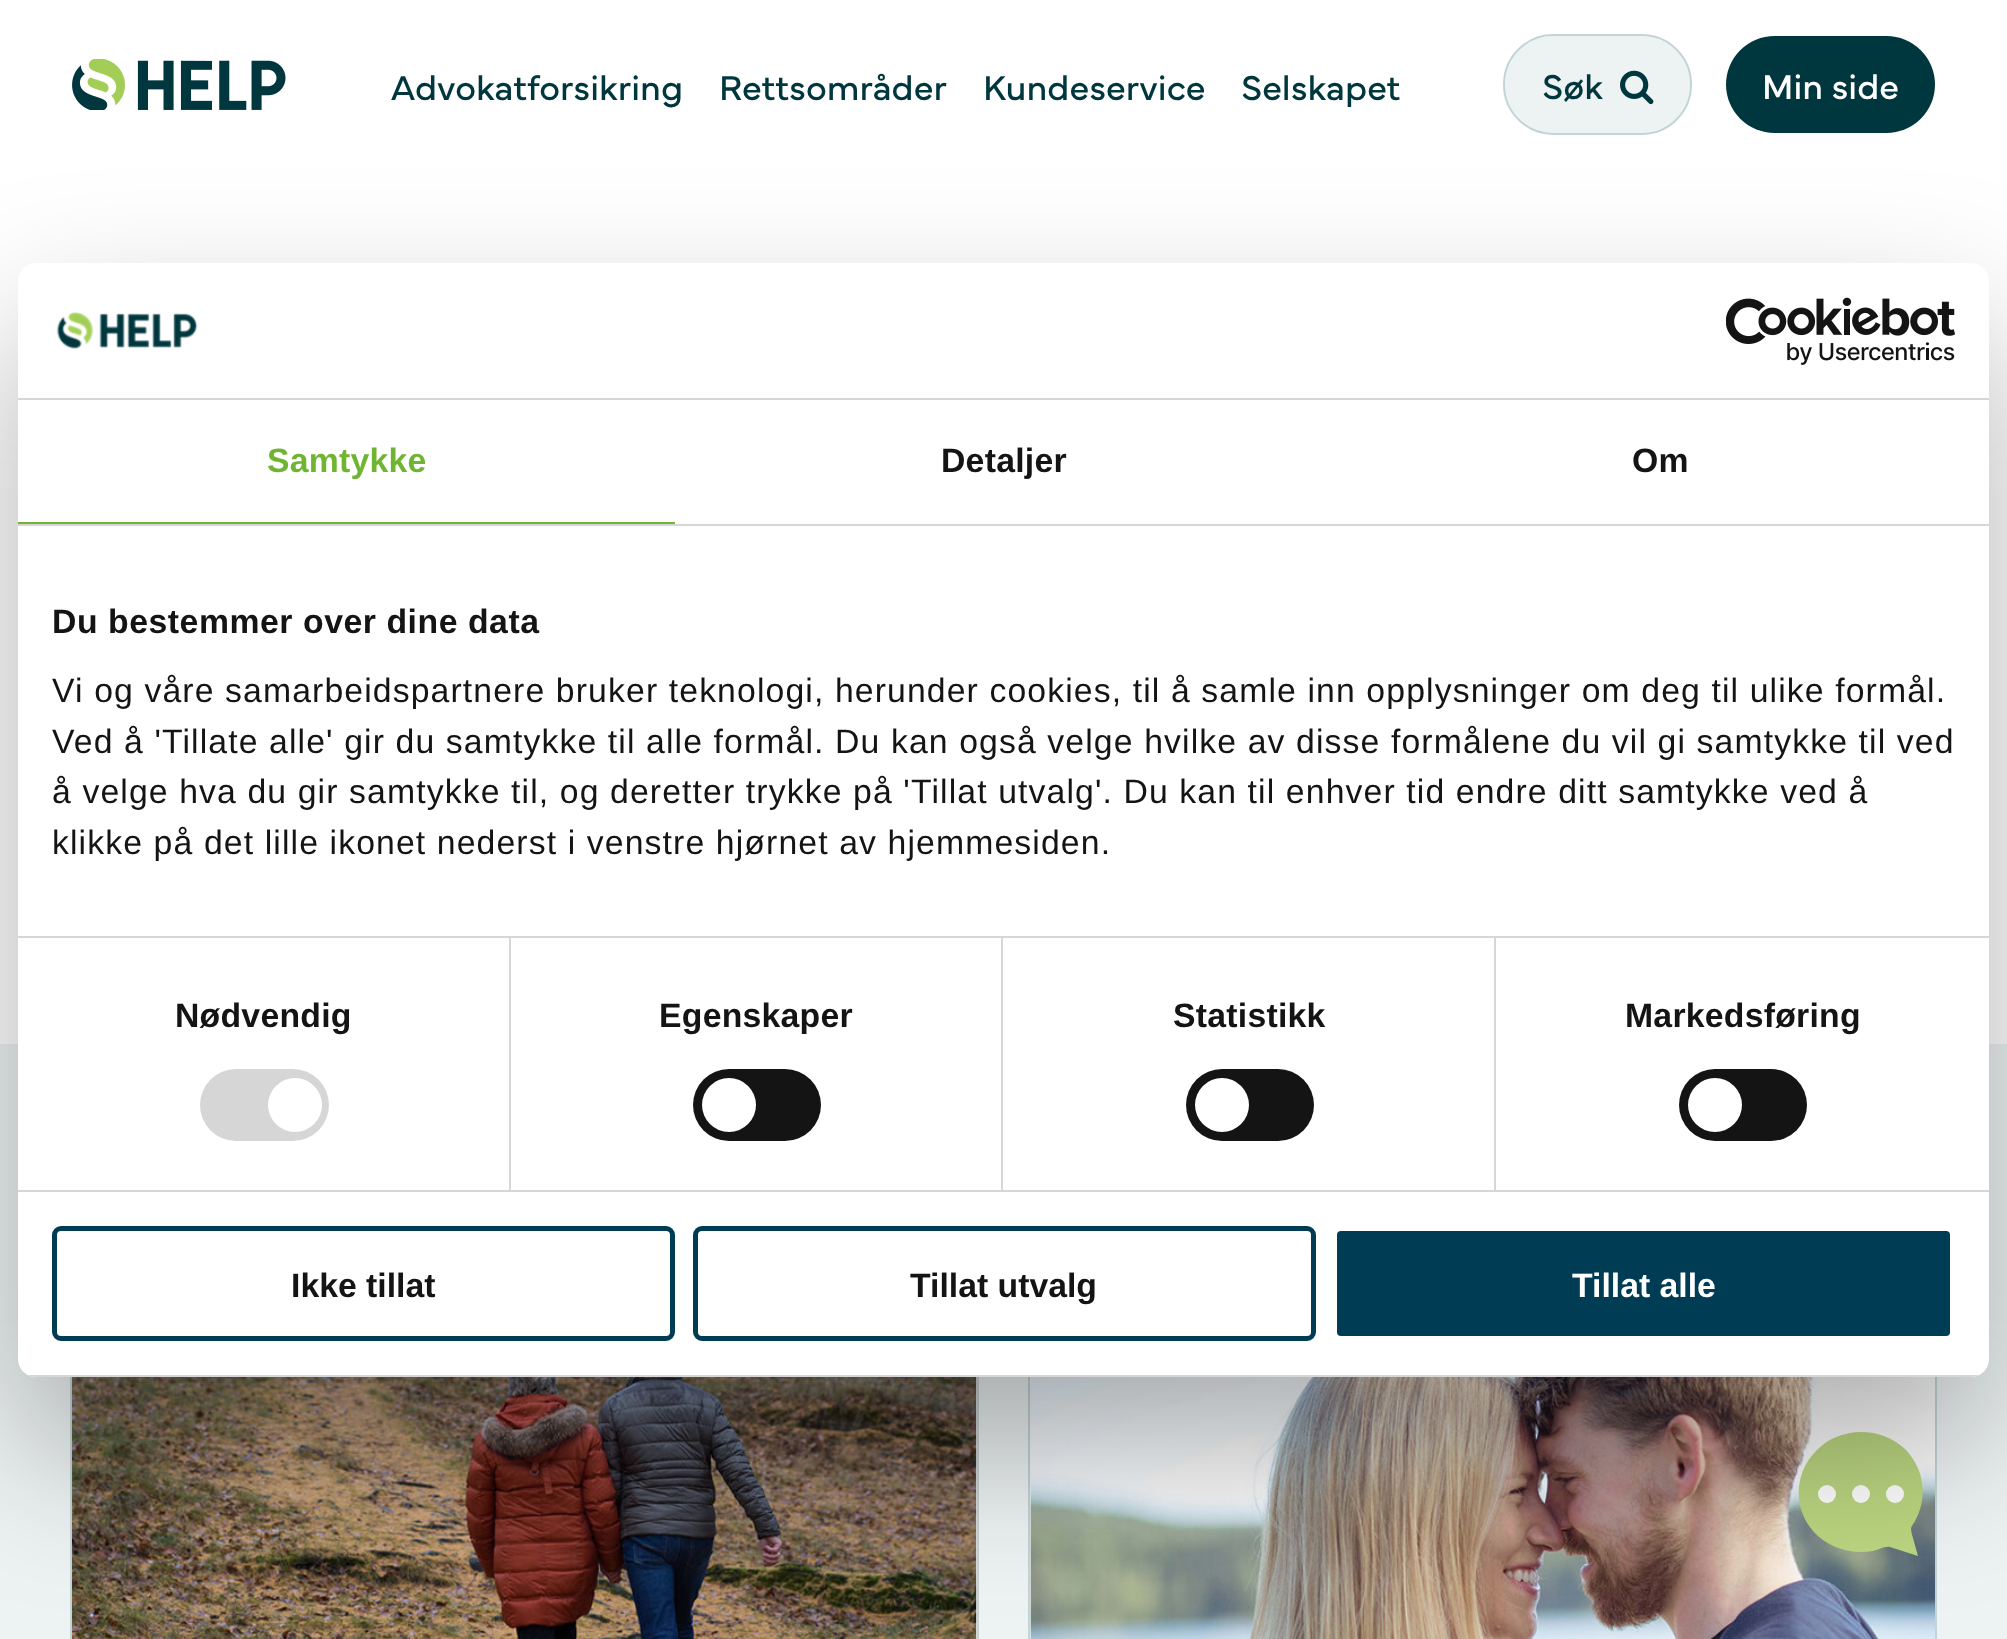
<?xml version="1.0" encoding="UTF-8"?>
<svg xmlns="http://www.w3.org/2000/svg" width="2007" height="1639">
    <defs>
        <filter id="blur1" x="-50%" y="-200%" width="200%" height="500%"><feGaussianBlur stdDeviation="76.5"/></filter>
        <clipPath id="clip1"><rect x="18" y="263" width="1971" height="1114" rx="18"/></clipPath>
    </defs>
    <rect width="100%" height="100%" fill="#FFFFFF"/>
    <image x="72" y="59" width="214" height="51" href="img_01.png"/>
    <text x="391" y="100" font-family="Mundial" font-size="36" fill="#00373E">Advokatforsikring</text>
    <text x="719" y="100" font-family="Mundial" font-size="36" fill="#00373E">Rettsområder</text>
    <text x="983" y="100" font-family="Mundial" font-size="36" fill="#00373E">Kundeservice</text>
    <text x="1241" y="100" font-family="Mundial" font-size="36" fill="#00373E">Selskapet</text>
    <rect x="1505" y="36" width="185" height="97" rx="48.5" fill="#EDF2F3"/>
    <image x="1620" y="70" width="34" height="35" href="img_02.png"/>
    <rect x="1504" y="35" width="187" height="99" rx="49.5" fill="none" stroke="#C2D4D6" stroke-width="2"/>
    <text x="1542" y="99" font-family="Mundial" font-size="36" fill="#00373E">Søk</text>
    <rect x="1726" y="36" width="209" height="97" rx="48.5" fill="#00373E"/>
    <text x="1762" y="99" font-family="Mundial" font-size="36" fill="#FFFFFF">Min side</text>
    <rect x="0" y="1044" width="2007" height="595" fill="#EDF2F3"/>
    <rect x="976" y="1377" width="1" height="262" fill="#FFFFFF"/>
    <image x="72" y="1377" width="905" height="262" href="img_05.png"/>
    <rect x="71" y="1299" width="907" height="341" fill="none" stroke="#C2D4D6" stroke-width="2"/>
    <image x="1030" y="1377" width="905" height="262" href="img_06.png"/>
    <rect x="1029" y="1299" width="907" height="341" fill="none" stroke="#C2D4D6" stroke-width="2"/>
    <path d="M 1922 1501 C 1925 1482 1919 1464 1906 1450 C 1881 1426 1840 1426 1816 1451 C 1794 1473 1793 1508 1813 1531 C 1828 1548 1852 1555 1873 1551 C 1878 1550 1885 1546 1890 1547 L 1918 1556 L 1913 1538 C 1912 1535 1911 1531 1911 1528 C 1912 1525 1915 1522 1916 1519 C 1919 1513 1921 1507 1922 1501 Z" fill="#BBD681"/>
    <circle cx="1895" cy="1494" r="9" fill="#FFFFFF"/>
    <circle cx="1861" cy="1494" r="9" fill="#FFFFFF"/>
    <circle cx="1827" cy="1494" r="9" fill="#FFFFFF"/>
    <rect x="18" y="335" width="1971" height="1114" rx="18" fill="#000000" fill-opacity="0.3" filter="url(#blur1)"/>
    <rect x="18" y="263" width="1971" height="1114" rx="18" fill="#FFFFFF"/>
    <rect x="18" y="398" width="1971" height="2" fill="#D6D6D6"/>
    <image x="56" y="311" width="142" height="38" href="img_03.png"/>
    <image x="1726" y="297" width="229" height="68" href="img_04.png"/>
    <rect x="18" y="524" width="1971" height="2" fill="#D6D6D6"/>
    <rect x="18" y="522" width="657" height="2" fill="#70B532"/>
    <text x="267" y="472" font-family="Liberation Sans" font-size="33.75" font-weight="700" letter-spacing="0.25" fill="#70B532">Samtykke</text>
    <text x="941" y="472" font-family="Liberation Sans" font-size="33.75" font-weight="700" letter-spacing="0.25" fill="#141414">Detaljer</text>
    <text x="1632" y="472" font-family="Liberation Sans" font-size="33.75" font-weight="700" letter-spacing="0.25" fill="#141414">Om</text>
    <rect x="18" y="936" width="1971" height="2" fill="#D6D6D6"/>
    <text x="52" y="633" font-family="Liberation Sans" font-size="33.75" font-weight="700" letter-spacing="0.55" fill="#141414">Du bestemmer over dine data</text>
    <text font-family="Liberation Sans" font-size="33.75" letter-spacing="1.12" fill="#141414">
        <tspan x="52" y="702">Vi og våre samarbeidspartnere bruker teknologi, herunder cookies, til å samle inn opplysninger om deg til ulike formål.</tspan>
        <tspan x="52" y="753">Ved å 'Tillate alle' gir du samtykke til alle formål. Du kan også velge hvilke av disse formålene du vil gi samtykke til ved</tspan>
        <tspan x="52" y="803">å velge hva du gir samtykke til, og deretter trykke på 'Tillat utvalg'. Du kan til enhver tid endre ditt samtykke ved å</tspan>
        <tspan x="52" y="854">klikke på det lille ikonet nederst i venstre hjørnet av hjemmesiden.</tspan>
    </text>
    <rect x="18" y="1190" width="1971" height="2" fill="#D6D6D6"/>
    <rect x="509" y="938" width="2" height="252" fill="#D6D6D6"/>
    <text x="175" y="1027" font-family="Liberation Sans" font-size="33.75" font-weight="700" letter-spacing="0.25" fill="#141414">Nødvendig</text>
    <rect x="200" y="1069" width="129" height="72" rx="36" fill="#D6D6D6"/>
    <circle cx="295" cy="1105" r="27" fill="#FFFFFF"/>
    <rect x="1001" y="938" width="2" height="252" fill="#D6D6D6"/>
    <text x="659" y="1027" font-family="Liberation Sans" font-size="33.75" font-weight="700" letter-spacing="0.25" fill="#141414">Egenskaper</text>
    <rect x="693" y="1069" width="128" height="72" rx="36" fill="#141414"/>
    <circle cx="729" cy="1105" r="27" fill="#FFFFFF"/>
    <rect x="1494" y="938" width="2" height="252" fill="#D6D6D6"/>
    <text x="1173" y="1027" font-family="Liberation Sans" font-size="33.75" font-weight="700" letter-spacing="0.25" fill="#141414">Statistikk</text>
    <rect x="1186" y="1069" width="128" height="72" rx="36" fill="#141414"/>
    <circle cx="1222" cy="1105" r="27" fill="#FFFFFF"/>
    <text x="1625" y="1027" font-family="Liberation Sans" font-size="33.75" font-weight="700" letter-spacing="0.25" fill="#141414">Markedsføring</text>
    <rect x="1679" y="1069" width="128" height="72" rx="36" fill="#141414"/>
    <circle cx="1715" cy="1105" r="27" fill="#FFFFFF"/>
    <g clip-path="url(#clip1)">
        <rect x="28" y="1375" width="1951" height="2" fill="#D6D6D6"/>
    </g>
    <rect x="54.5" y="1228.5" width="618" height="110" rx="6.5" fill="none" stroke="#003D55" stroke-width="5"/>
    <text x="291" y="1297" font-family="Liberation Sans" font-size="33.75" font-weight="700" fill="#141414">Ikke tillat</text>
    <rect x="695.5" y="1228.5" width="618" height="110" rx="6.5" fill="none" stroke="#003D55" stroke-width="5"/>
    <text x="910" y="1297" font-family="Liberation Sans" font-size="33.75" font-weight="700" fill="#141414">Tillat utvalg</text>
    <rect x="1334.5" y="1228.5" width="618" height="110" rx="6.5" fill="#003D55" stroke="#FFFFFF" stroke-width="5"/>
    <text x="1572" y="1297" font-family="Liberation Sans" font-size="33.75" font-weight="700" fill="#FFFFFF">Tillat alle</text>
</svg>
